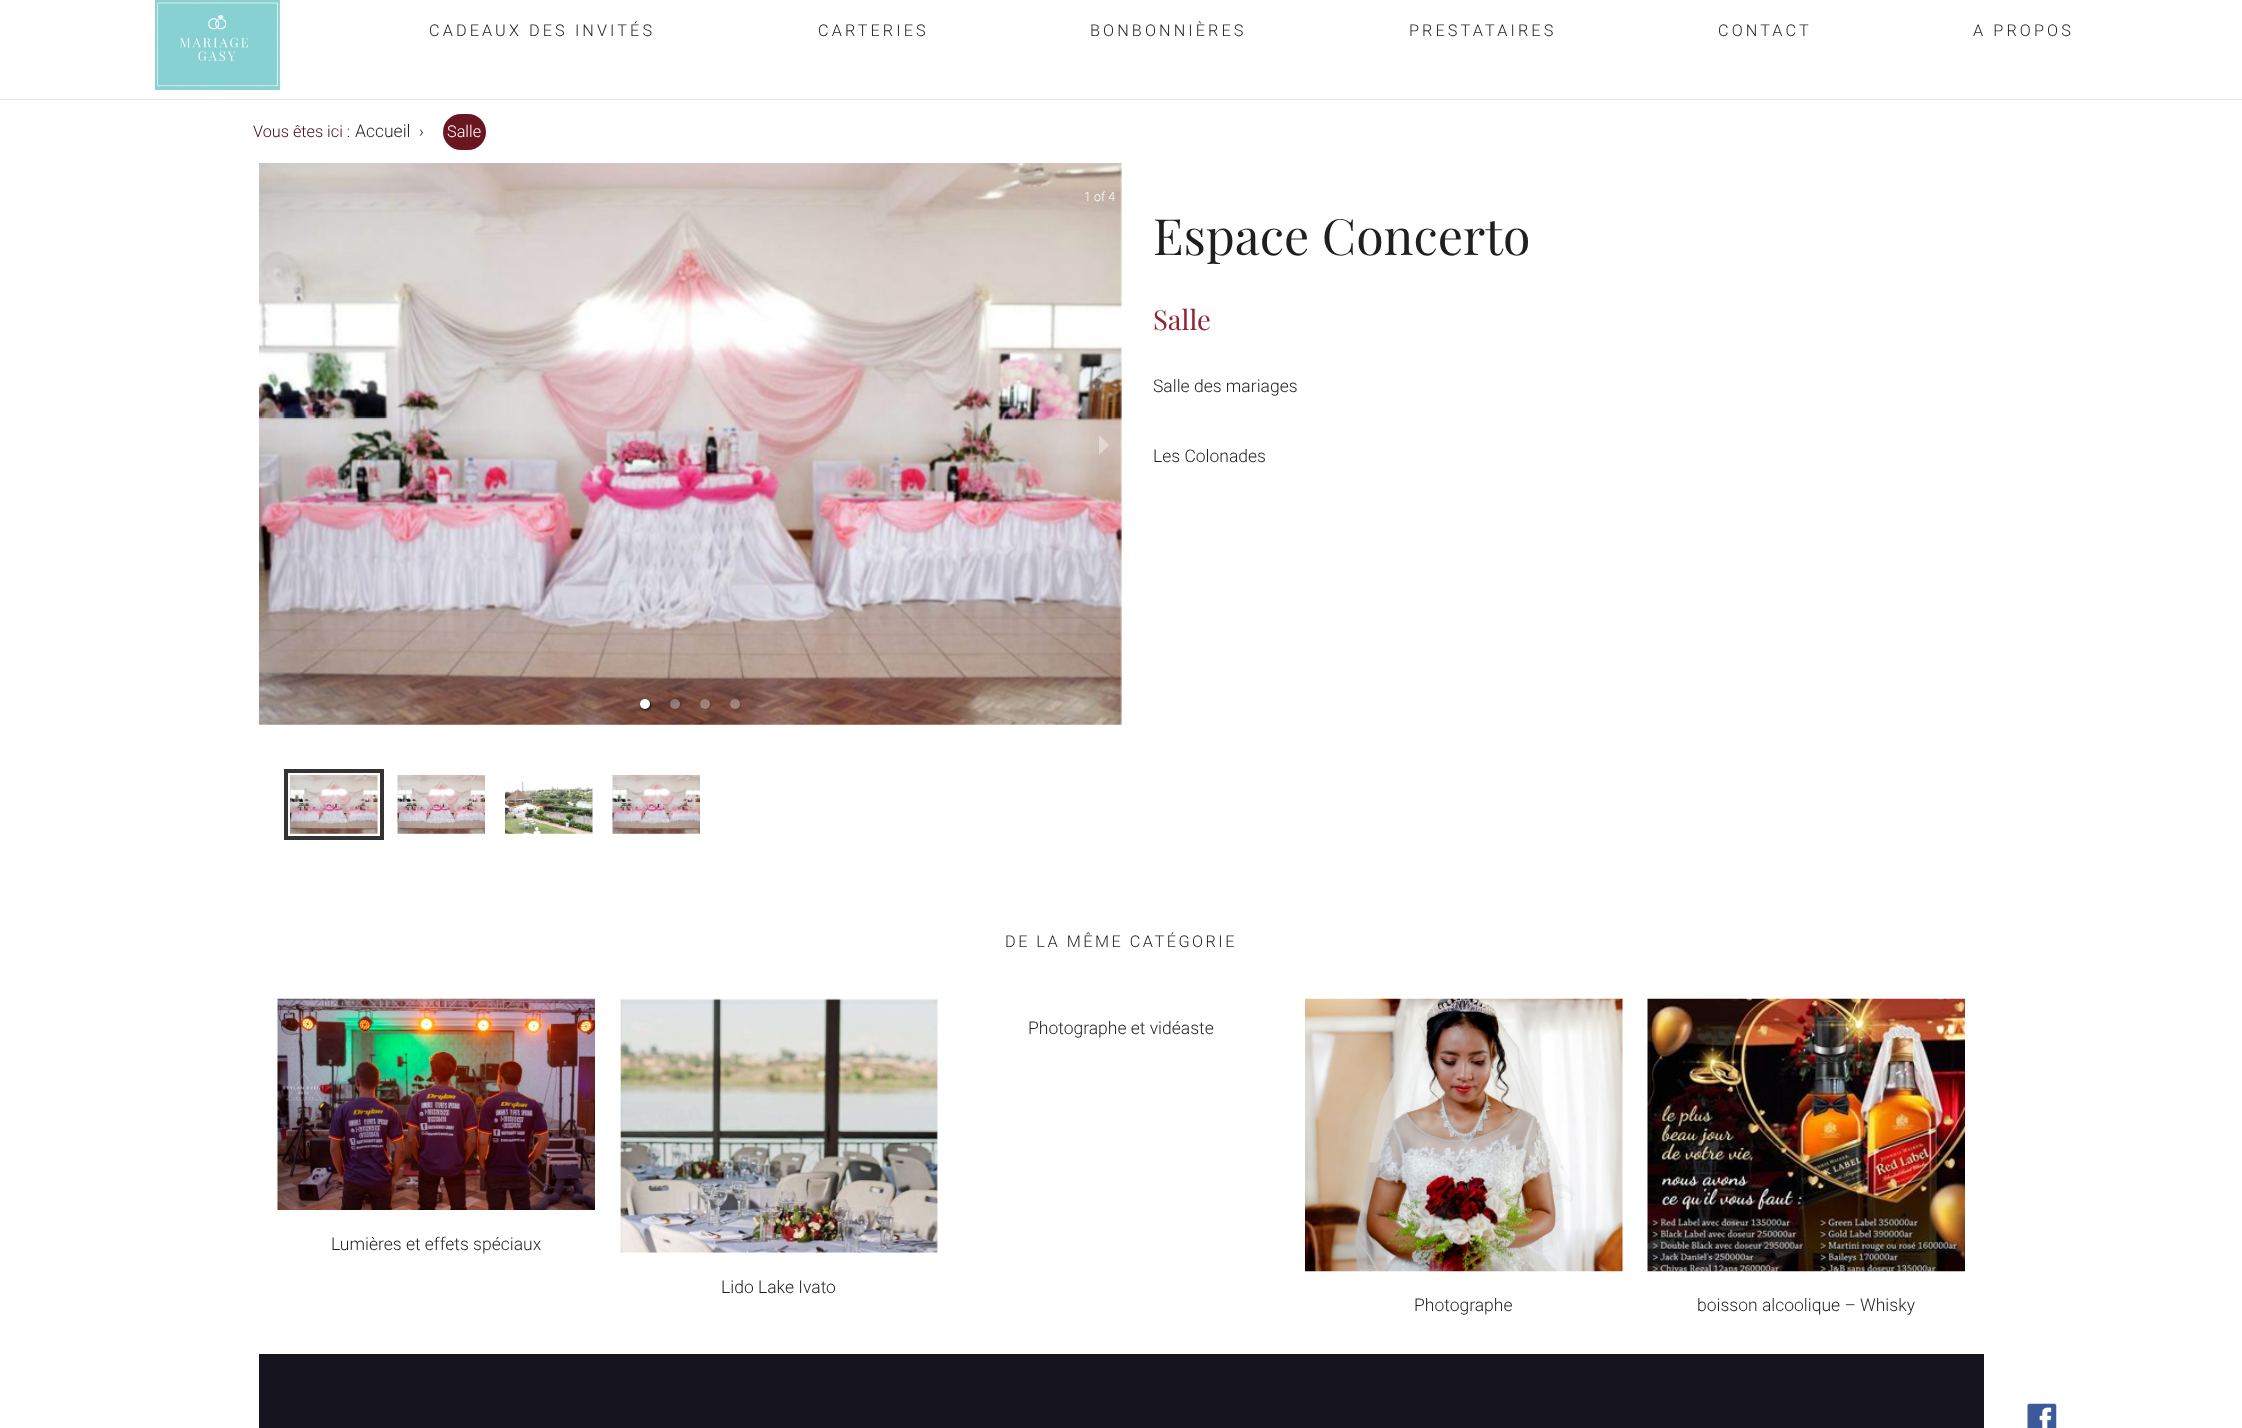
<?xml version="1.0" encoding="UTF-8"?>
<svg xmlns="http://www.w3.org/2000/svg" width="2242" height="1428">
    <defs>
        <filter id="blur1" x="-50%" y="-200%" width="200%" height="500%"><feGaussianBlur stdDeviation="1"/></filter>
        <clipPath id="clip1"><path d="M 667 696 H 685 V 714 H 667 Z M 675 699 C 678 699 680 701 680 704 C 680 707 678 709 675 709 C 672 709 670 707 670 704 C 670 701 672 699 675 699 Z" clip-rule="evenodd"/></clipPath>
        <clipPath id="clip2"><path d="M 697 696 H 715 V 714 H 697 Z M 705 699 C 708 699 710 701 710 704 C 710 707 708 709 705 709 C 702 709 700 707 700 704 C 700 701 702 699 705 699 Z" clip-rule="evenodd"/></clipPath>
        <clipPath id="clip3"><path d="M 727 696 H 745 V 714 H 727 Z M 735 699 C 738 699 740 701 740 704 C 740 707 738 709 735 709 C 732 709 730 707 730 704 C 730 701 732 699 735 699 Z" clip-rule="evenodd"/></clipPath>
    </defs>
    <rect width="100%" height="100%" fill="#FFFFFF"/>
    <rect x="0" y="99" width="2242" height="1" fill="#E6E6E6"/>
    <image x="155" y="0" width="125" height="90" href="img_01.png"/>
    <text x="429" y="36" font-family="Roboto" font-size="16.25" font-weight="300" letter-spacing="3.1" fill="#1F1F1F">CADEAUX DES INVITÉS</text>
    <text x="818" y="36" font-family="Roboto" font-size="16.25" font-weight="300" letter-spacing="3.1" fill="#1F1F1F">CARTERIES</text>
    <text x="1090" y="36" font-family="Roboto" font-size="16.25" font-weight="300" letter-spacing="3.1" fill="#1F1F1F">BONBONNIÈRES</text>
    <text x="1409" y="36" font-family="Roboto" font-size="16.25" font-weight="300" letter-spacing="3.1" fill="#1F1F1F">PRESTATAIRES</text>
    <text x="1718" y="36" font-family="Roboto" font-size="16.25" font-weight="300" letter-spacing="3.1" fill="#1F1F1F">CONTACT</text>
    <text x="1973" y="36" font-family="Roboto" font-size="16.25" font-weight="300" letter-spacing="3.1" fill="#1F1F1F">A PROPOS</text>
    <text x="253" y="137" font-family="Roboto" font-size="16.25" font-weight="300" fill="#450B13">Vous êtes ici :</text>
    <text x="355" y="137" font-family="Roboto" font-size="17.5" font-weight="300" fill="#1F1F1F">Accueil</text>
    <text x="419" y="137" font-family="Roboto" font-size="16.25" font-weight="300" fill="#450B13">›</text>
    <rect x="443" y="114" width="43" height="36" rx="18" fill="#6A1622"/>
    <text x="447" y="137" font-family="Roboto" font-size="16.25" font-weight="300" fill="#FFFFFF">Salle</text>
    <image x="259" y="163" width="863" height="562" href="img_02.png"/>
    <text x="1084" y="201" font-family="Roboto" font-size="12.5" font-weight="300" fill="#FFFFFF">1 of 4</text>
    <path d="M 1099 455 V 435 L 1109 445 Z" fill="#FFFFFF" fill-opacity="0.4"/>
    <rect x="641" y="700" width="10" height="10" rx="5" fill="#000000" fill-opacity="0.9" filter="url(#blur1)"/>
    <circle cx="645" cy="704" r="5" fill="#FFFFFF"/>
    <g clip-path="url(#clip1)">
        <rect x="671" y="700" width="10" height="10" rx="5" fill="#000000" fill-opacity="0.27" filter="url(#blur1)"/>
    </g>
    <circle cx="675" cy="704" r="5" fill="#FFFFFF" fill-opacity="0.3"/>
    <g clip-path="url(#clip2)">
        <rect x="701" y="700" width="10" height="10" rx="5" fill="#000000" fill-opacity="0.27" filter="url(#blur1)"/>
    </g>
    <circle cx="705" cy="704" r="5" fill="#FFFFFF" fill-opacity="0.3"/>
    <g clip-path="url(#clip3)">
        <rect x="731" y="700" width="10" height="10" rx="5" fill="#000000" fill-opacity="0.27" filter="url(#blur1)"/>
    </g>
    <circle cx="735" cy="704" r="5" fill="#FFFFFF" fill-opacity="0.3"/>
    <rect x="286" y="771" width="96" height="67" fill="none" stroke="#333333" stroke-width="4"/>
    <image x="290" y="775" width="88" height="59" href="img_03.png"/>
    <image x="397" y="775" width="88" height="59" href="img_04.png"/>
    <image x="505" y="781" width="88" height="53" href="img_05.png"/>
    <image x="612" y="775" width="88" height="59" href="img_06.png"/>
    <text x="1153" y="255" font-family="Playfair Display" font-size="50" fill="#1F1F1F">Espace Concerto</text>
    <text x="1153" y="330" font-family="Playfair Display" font-size="27.5" fill="#912332">Salle</text>
    <text x="1153" y="392" font-family="Roboto" font-size="17.5" font-weight="300" fill="#1F1F1F">Salle des mariages</text>
    <text x="1153" y="462" font-family="Roboto" font-size="17.5" font-weight="300" fill="#1F1F1F">Les Colonades</text>
    <text x="1005" y="947" font-family="Roboto" font-size="16.25" font-weight="300" letter-spacing="2.5" fill="#1F1F1F">DE LA MÊME CATÉGORIE</text>
    <text x="1028" y="1034" font-family="Roboto" font-size="17.5" font-weight="300" fill="#1F1F1F">Photographe et vidéaste</text>
    <image x="277" y="998" width="318" height="212" href="img_07.png"/>
    <text x="331" y="1250" font-family="Roboto" font-size="17.5" font-weight="300" fill="#1F1F1F">Lumières et effets spéciaux</text>
    <image x="620" y="998" width="318" height="255" href="img_08.png"/>
    <text x="721" y="1293" font-family="Roboto" font-size="17.5" font-weight="300" fill="#1F1F1F">Lido Lake Ivato</text>
    <image x="1305" y="998" width="318" height="274" href="img_09.png"/>
    <text x="1414" y="1311" font-family="Roboto" font-size="17.5" font-weight="300" fill="#1F1F1F">Photographe</text>
    <image x="1647" y="998" width="318" height="274" href="img_10.png"/>
    <text x="1697" y="1311" font-family="Roboto" font-size="17.5" font-weight="300" fill="#1F1F1F">boisson alcoolique – Whisky</text>
    <rect x="259" y="1354" width="1725" height="74" fill="#15141F"/>
    <image x="2027" y="1403" width="30" height="25" href="img_11.png"/>
</svg>
